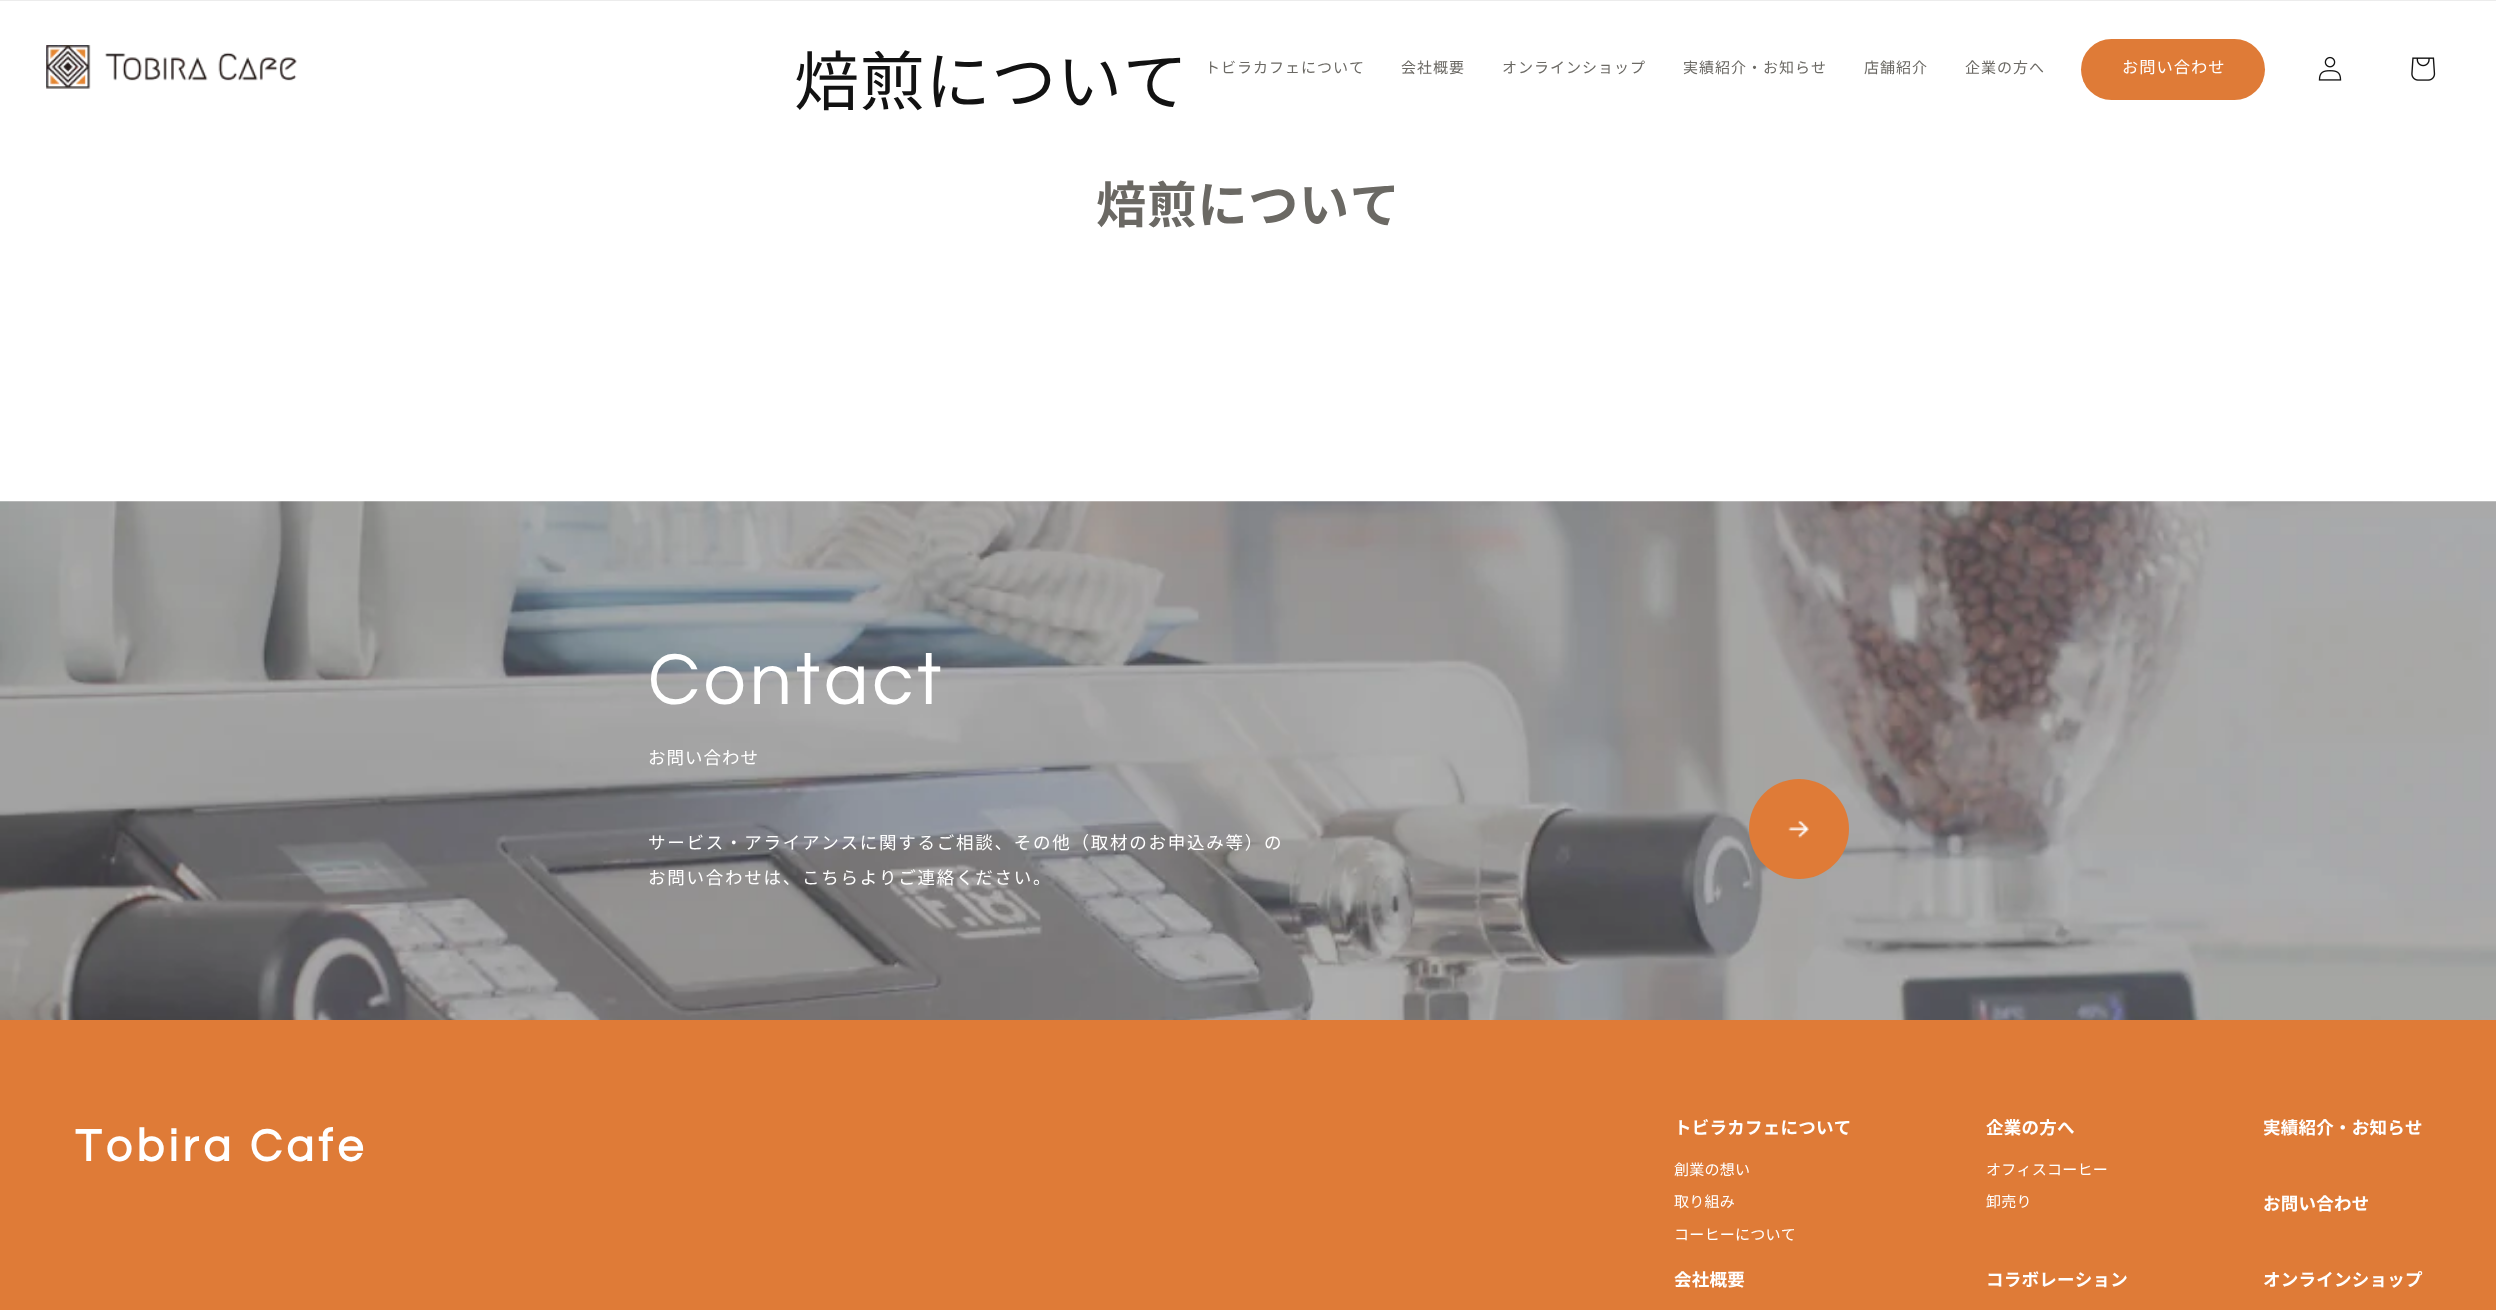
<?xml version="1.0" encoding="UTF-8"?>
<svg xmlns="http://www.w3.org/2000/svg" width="2496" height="1310">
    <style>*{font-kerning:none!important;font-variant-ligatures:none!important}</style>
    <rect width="100%" height="100%" fill="#FFFFFF"/>
    <text x="794" y="105" font-family="Noto Sans JP" font-size="65" letter-spacing="0.75" fill="#121212">焙煎について</text>
    <text x="1096" y="223" font-family="Noto Sans JP" font-size="50" font-weight="700" letter-spacing="0.75" fill="#6B6964">焙煎について</text>
    <rect x="0" y="0" width="2496" height="1" fill="#ECECEC"/>
    <image x="46" y="45" width="251" height="44" href="img_01.png"/>
    <text x="1205" y="73" font-family="Noto Sans JP" font-size="15" letter-spacing="1" fill="#6B6964">トビラカフェについて</text>
    <text x="1401" y="73" font-family="Noto Sans JP" font-size="15" letter-spacing="1" fill="#6B6964">会社概要</text>
    <text x="1502" y="73" font-family="Noto Sans JP" font-size="15" letter-spacing="1" fill="#6B6964">オンラインショップ</text>
    <text x="1683" y="73" font-family="Noto Sans JP" font-size="15" letter-spacing="1" fill="#6B6964">実績紹介・お知らせ</text>
    <text x="1864" y="73" font-family="Noto Sans JP" font-size="15" letter-spacing="1" fill="#6B6964">店舗紹介</text>
    <text x="1965" y="73" font-family="Noto Sans JP" font-size="15" letter-spacing="1" fill="#6B6964">企業の方へ</text>
    <rect x="2081" y="39" width="184" height="61" rx="30.5" fill="#DF7B37"/>
    <text x="2122" y="73" font-family="Noto Sans JP" font-size="16.25" letter-spacing="1" fill="#FFFFFF">お問い合わせ</text>
    <image x="2318" y="56" width="24" height="25" href="img_02.png"/>
    <image x="2411" y="57" width="25" height="24" href="img_03.png"/>
    <image x="0" y="501" width="2496" height="519" href="img_04.png"/>
    <text x="648" y="704" font-family="Questrial" font-size="75" letter-spacing="3.75" fill="#FFFFFF">Contact</text>
    <text x="648" y="764" font-family="Noto Sans JP" font-size="17.5" letter-spacing="1" fill="#FFFFFF">お問い合わせ</text>
    <text x="648" y="849" font-family="Noto Sans JP" font-size="17.5" letter-spacing="1.75" fill="#FFFFFF">サービス・アライアンスに関するご相談、その他（取材のお申込み等）の</text>
    <text x="648" y="884" font-family="Noto Sans JP" font-size="17.5" letter-spacing="1.75" fill="#FFFFFF">お問い合わせは、こちらよりご連絡ください。</text>
    <circle cx="1799" cy="829" r="50" fill="#DF7B37"/>
    <image x="1788" y="820" width="21" height="18" href="img_05.png"/>
    <rect x="0" y="1020" width="2496" height="290" fill="#DF7B37"/>
    <text x="75" y="1161" font-family="Questrial" font-size="46.25" font-weight="700" letter-spacing="4.6" fill="#FFFFFF">Tobira Cafe</text>
    <text x="1674" y="1134" font-family="Noto Sans JP" font-size="17.5" font-weight="700" letter-spacing="0.25" fill="#FFFFFF">トビラカフェについて</text>
    <text x="1674" y="1175" font-family="Noto Sans JP" font-size="15" letter-spacing="0.25" fill="#FFFFFF">創業の想い</text>
    <text x="1674" y="1207" font-family="Noto Sans JP" font-size="15" letter-spacing="0.25" fill="#FFFFFF">取り組み</text>
    <text x="1674" y="1240" font-family="Noto Sans JP" font-size="15" letter-spacing="0.25" fill="#FFFFFF">コーヒーについて</text>
    <text x="1674" y="1286" font-family="Noto Sans JP" font-size="17.5" font-weight="700" letter-spacing="0.25" fill="#FFFFFF">会社概要</text>
    <text x="1986" y="1134" font-family="Noto Sans JP" font-size="17.5" font-weight="700" letter-spacing="0.25" fill="#FFFFFF">企業の方へ</text>
    <text x="1986" y="1175" font-family="Noto Sans JP" font-size="15" letter-spacing="0.25" fill="#FFFFFF">オフィスコーヒー</text>
    <text x="1986" y="1207" font-family="Noto Sans JP" font-size="15" letter-spacing="0.25" fill="#FFFFFF">卸売り</text>
    <text x="1986" y="1286" font-family="Noto Sans JP" font-size="17.5" font-weight="700" letter-spacing="0.25" fill="#FFFFFF">コラボレーション</text>
    <text x="2263" y="1134" font-family="Noto Sans JP" font-size="17.5" font-weight="700" letter-spacing="0.25" fill="#FFFFFF">実績紹介・お知らせ</text>
    <text x="2263" y="1210" font-family="Noto Sans JP" font-size="17.5" font-weight="700" letter-spacing="0.25" fill="#FFFFFF">お問い合わせ</text>
    <text x="2263" y="1286" font-family="Noto Sans JP" font-size="17.5" font-weight="700" letter-spacing="0.25" fill="#FFFFFF">オンラインショップ</text>
</svg>
